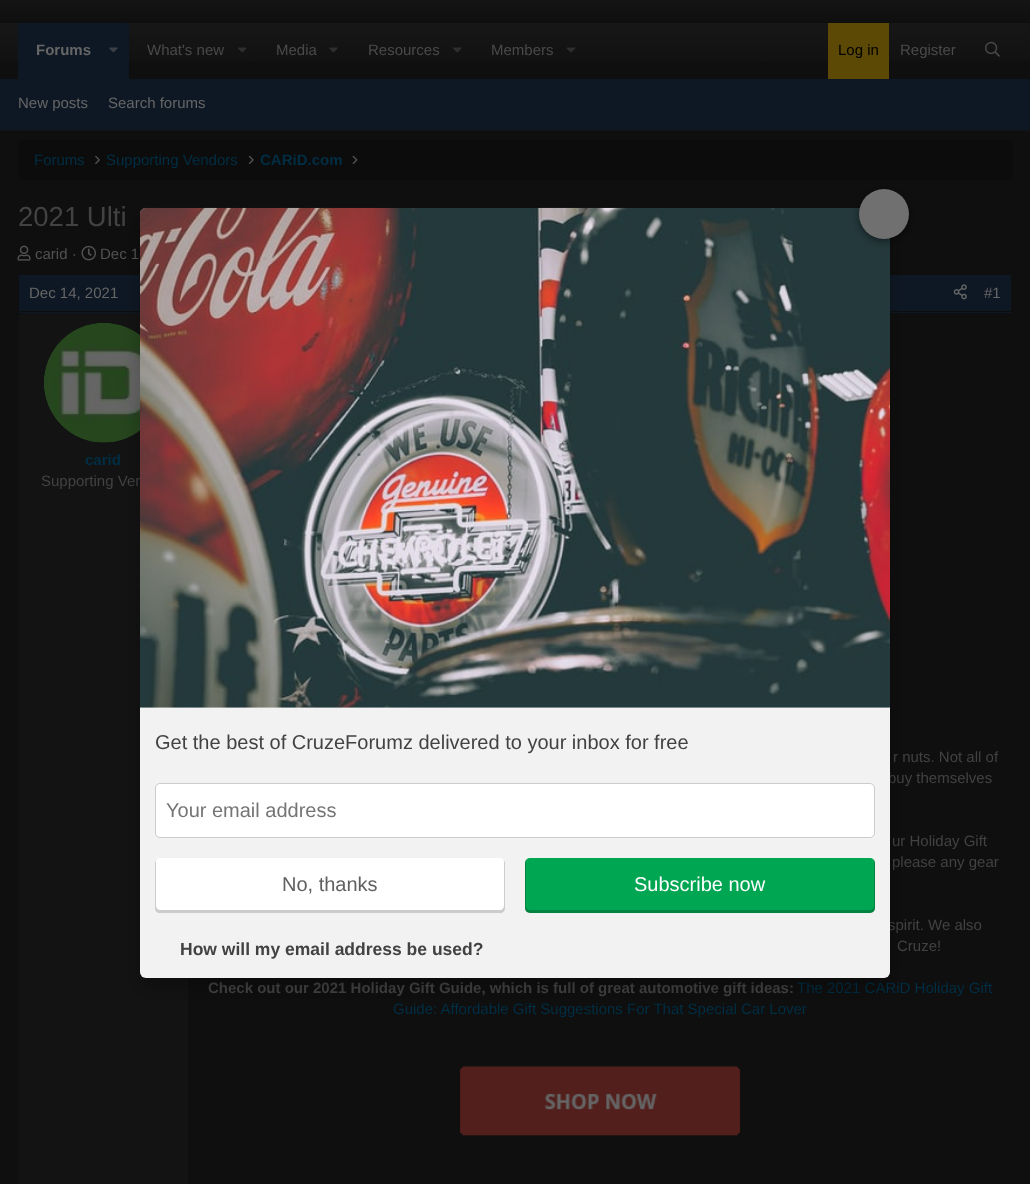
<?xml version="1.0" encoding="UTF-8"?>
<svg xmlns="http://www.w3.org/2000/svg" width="1030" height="1184">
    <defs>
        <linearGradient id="g1" gradientUnits="userSpaceOnUse" x1="515" y1="22" x2="515" y2="79"><stop offset="0" stop-color="#171717"/><stop offset="1" stop-color="#0F0F0F"/></linearGradient>
        <filter id="blur1" x="-50%" y="-200%" width="200%" height="500%"><feGaussianBlur stdDeviation="10"/></filter>
        <filter id="blur2" x="-50%" y="-200%" width="200%" height="500%"><feGaussianBlur stdDeviation="4"/></filter>
    </defs>
    <rect width="100%" height="100%" fill="#0F0F0F"/>
    <image x="0" y="0" width="1030" height="23" href="img_01.png"/>
    <rect x="0" y="23" width="1030" height="38" fill="url(#g1)"/>
    <path d="M 20.5 23 H 126.5 C 128 23 129 24 129 25.5 V 79 H 18 V 25.5 C 18 24 19 23 20.5 23 Z" fill="#0E1824"/>
    <text x="36" y="55" font-family="Liberation Sans" font-size="15" font-weight="700" fill="#666666">Forums</text>
    <image x="109" y="47" width="9" height="6" href="img_02.png"/>
    <text x="147" y="55" font-family="Liberation Sans" font-size="15" fill="#4A4A4A">What's new</text>
    <image x="238" y="47" width="9" height="6" href="img_03.png"/>
    <text x="276" y="55" font-family="Liberation Sans" font-size="15" fill="#4A4A4A">Media</text>
    <image x="329" y="47" width="9" height="6" href="img_04.png"/>
    <text x="368" y="55" font-family="Liberation Sans" font-size="15" fill="#4A4A4A">Resources</text>
    <image x="453" y="47" width="9" height="6" href="img_03.png"/>
    <text x="491" y="55" font-family="Liberation Sans" font-size="15" fill="#4A4A4A">Members</text>
    <image x="566" y="47" width="10" height="6" href="img_05.png"/>
    <rect x="828" y="23" width="61" height="56" fill="#5C4906"/>
    <text x="838" y="55" font-family="Liberation Sans" font-size="15" fill="#000000">Log in</text>
    <text x="900" y="55" font-family="Liberation Sans" font-size="15" fill="#4A4A4A">Register</text>
    <image x="985" y="41" width="15" height="16" href="img_06.png"/>
    <rect x="0" y="79" width="1030" height="51" fill="#0E1824"/>
    <rect x="0" y="130" width="1030" height="1" fill="#131313"/>
    <text x="18" y="108" font-family="Liberation Sans" font-size="15" fill="#666666">New posts</text>
    <text x="108" y="108" font-family="Liberation Sans" font-size="15" fill="#666666">Search forums</text>
    <rect x="18" y="140" width="995" height="40" rx="5" fill="#0C0C0C"/>
    <text x="34" y="165" font-family="Liberation Sans" font-size="15" fill="#002E44">Forums</text>
    <image x="95" y="155" width="5" height="10" href="img_07.png"/>
    <text x="106" y="165" font-family="Liberation Sans" font-size="15" fill="#002E44">Supporting Vendors</text>
    <image x="248" y="155" width="6" height="10" href="img_08.png"/>
    <text x="260" y="165" font-family="Liberation Sans" font-size="15" font-weight="700" fill="#002E44">CARiD.com</text>
    <image x="352" y="155" width="6" height="10" href="img_09.png"/>
    <text x="18" y="226" font-family="Liberation Sans" font-size="27.5" fill="#424242">2021 Ulti</text>
    <image x="17" y="245" width="14" height="16" href="img_10.png"/>
    <text x="35" y="259" font-family="Liberation Sans" font-size="15" fill="#525252">carid ·</text>
    <image x="81" y="245" width="15" height="16" href="img_11.png"/>
    <text x="100" y="259" font-family="Liberation Sans" font-size="15" fill="#525252">Dec 1</text>
    <rect x="19" y="275" width="992" height="38" fill="#0E1824"/>
    <rect x="19" y="311" width="992" height="1" fill="#0E0E0E"/>
    <text x="29" y="298" font-family="Liberation Sans" font-size="15" fill="#666666">Dec 14, 2021</text>
    <image x="953" y="284" width="14" height="16" href="img_12.png"/>
    <text x="984" y="298" font-family="Liberation Sans" font-size="15" fill="#666666">#1</text>
    <path d="M 23 313 H 189 V 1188 H 23 C 21 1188 19 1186 19 1184 V 317 C 19 315 21 313 23 313 Z" fill="#131313"/>
    <rect x="188" y="978" width="1" height="206" fill="#0E0E0E"/>
    <image x="44" y="323" width="96" height="120" href="img_13.png"/>
    <text x="85" y="465" font-family="Liberation Sans" font-size="15" font-weight="700" fill="#002E44">carid</text>
    <text x="41" y="486" font-family="Liberation Sans" font-size="15" fill="#424242">Supporting Ven</text>
    <text x="893" y="762" font-family="Liberation Sans" font-size="15" fill="#424242">r nuts. Not all of</text>
    <text x="888" y="783" font-family="Liberation Sans" font-size="15" fill="#424242">buy themselves</text>
    <text font-family="Liberation Sans" font-size="15" fill="#424242">
        <tspan x="892" y="846">ur Holiday Gift</tspan>
        <tspan x="892" y="867">please any gear</tspan>
    </text>
    <text x="888" y="930" font-family="Liberation Sans" font-size="15" fill="#424242">spirit. We also</text>
    <text x="897" y="951" font-family="Liberation Sans" font-size="15" fill="#424242">Cruze!</text>
    <text x="208" y="993" font-family="Liberation Sans" font-size="15" font-weight="700" fill="#424242">Check out our 2021 Holiday Gift Guide, which is full of great automotive gift ideas:</text>
    <text x="797" y="993" font-family="Liberation Sans" font-size="15" fill="#002E44">The 2021 CARiD Holiday Gift</text>
    <text x="393" y="1014" font-family="Liberation Sans" font-size="15" fill="#002E44">Guide: Affordable Gift Suggestions For That Special Car Lover</text>
    <image x="459" y="1066" width="282" height="70" href="img_14.png"/>
    <rect x="140" y="218" width="750" height="770" rx="6" fill="#000000" fill-opacity="0.25" filter="url(#blur1)"/>
    <rect x="140" y="208" width="750" height="770" rx="6" fill="#F2F2F2"/>
    <image x="140" y="207" width="750" height="501" href="img_15.png"/>
    <rect x="859" y="191" width="50" height="50" rx="25" fill="#000000" fill-opacity="0.5" filter="url(#blur2)"/>
    <circle cx="884" cy="214" r="25" fill="#707070"/>
    <text x="155" y="749" font-family="Liberation Sans" font-size="20" fill="#424242">Get the best of CruzeForumz delivered to your inbox for free</text>
    <rect x="155.5" y="783.5" width="719" height="54" rx="4.5" fill="#FFFFFF" stroke="#CCCCCC"/>
    <text x="166" y="817" font-family="Liberation Sans" font-size="20" fill="#757575">Your email address</text>
    <rect x="155" y="858" width="350" height="55" rx="5" fill="#FFFFFF"/>
    <path d="M 503 859 L 504 861 V 906 C 504 908 502 910 500 910 H 160 C 158 910 156 908 156 906 V 861 L 157 859 C 156 860 155 862 155 863 V 908 C 155 911 157 913 160 913 H 500 C 503 913 505 911 505 908 V 863 C 505 862 504 860 503 859 Z" fill="#000000" fill-opacity="0.2"/>
    <text x="282" y="891" font-family="Liberation Sans" font-size="20" fill="#606060">No, thanks</text>
    <rect x="525" y="858" width="350" height="55" rx="5" fill="#00A651"/>
    <path d="M 873 859 L 874 861 V 906 C 874 908 872 910 870 910 H 530 C 528 910 526 908 526 906 V 861 L 527 859 C 526 860 525 862 525 863 V 908 C 525 911 527 913 530 913 H 870 C 873 913 875 911 875 908 V 863 C 875 862 874 860 873 859 Z" fill="#000000" fill-opacity="0.2"/>
    <text x="634" y="891" font-family="Liberation Sans" font-size="20" fill="#FFFFFF">Subscribe now</text>
    <text x="180" y="955" font-family="Liberation Sans" font-size="17.5" font-weight="700" fill="#424242">How will my email address be used?</text>
</svg>
